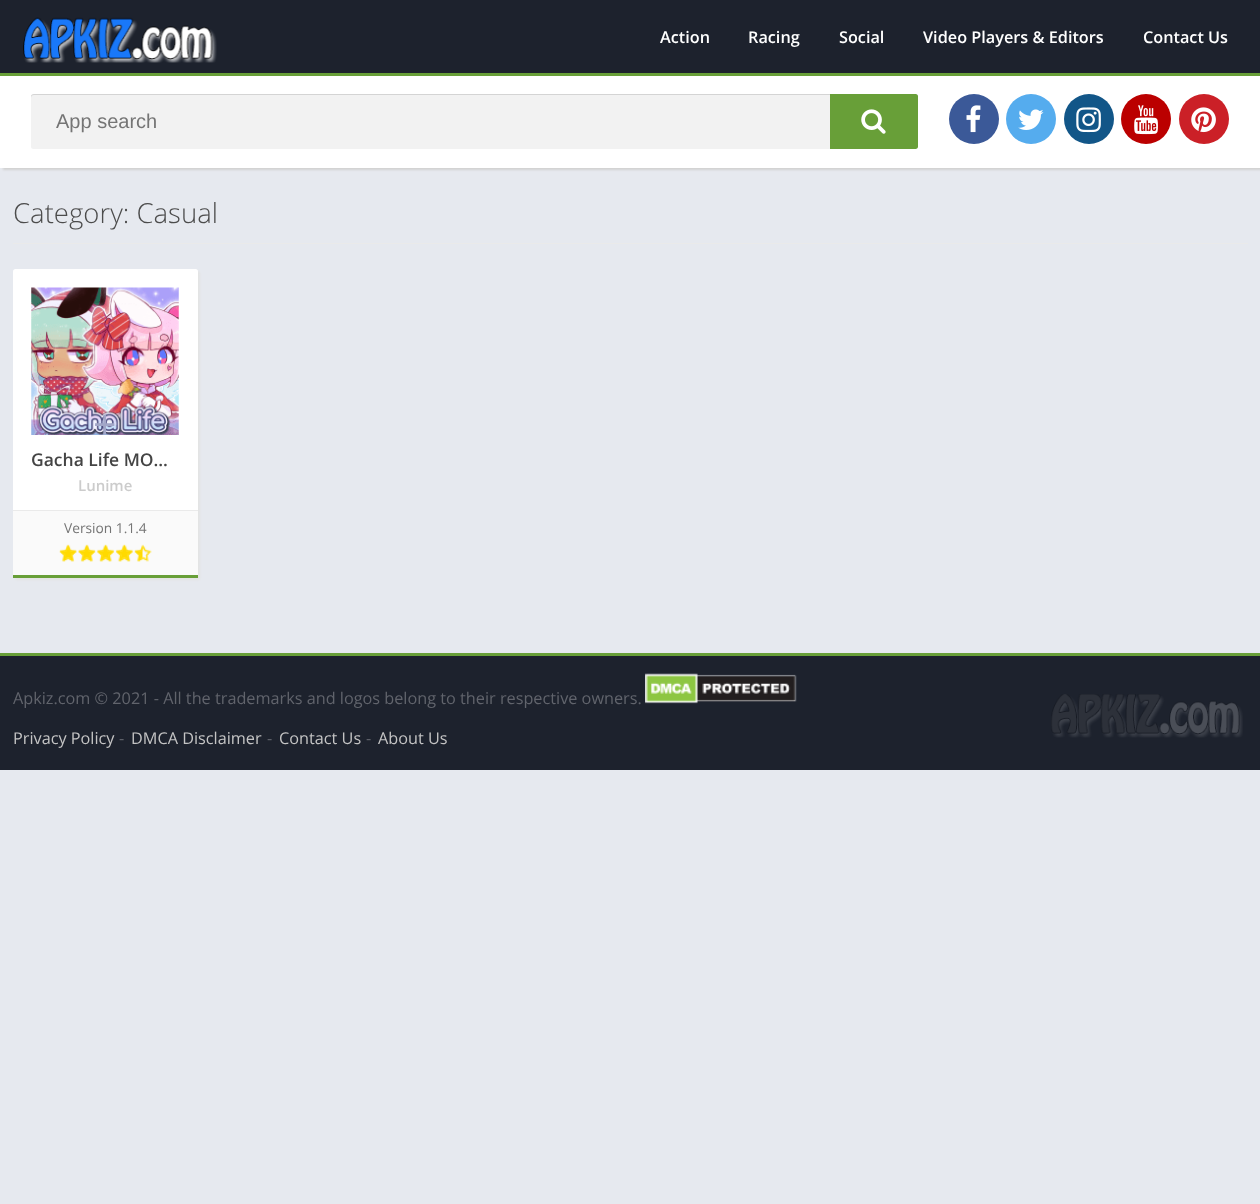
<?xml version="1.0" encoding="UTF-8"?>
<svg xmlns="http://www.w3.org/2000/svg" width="1260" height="1204">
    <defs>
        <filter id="blur1" x="-50%" y="-200%" width="200%" height="500%"><feGaussianBlur stdDeviation="1"/></filter>
    </defs>
    <rect width="100%" height="100%" fill="#E6E9EF"/>
    <rect x="3" y="3" width="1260" height="167" fill="#D2D1D1" filter="url(#blur1)"/>
    <rect x="0" y="0" width="1260" height="73" fill="#1D222D"/>
    <rect x="0" y="73" width="1260" height="3" fill="#689F38"/>
    <image x="23" y="17" width="194" height="46" href="img_01.png"/>
    <text x="660" y="43" font-family="Open Sans" font-size="16.25" font-weight="600" fill="#FFFFFF">Action</text>
    <text x="748" y="43" font-family="Open Sans" font-size="16.25" font-weight="600" fill="#FFFFFF">Racing</text>
    <text x="839" y="43" font-family="Open Sans" font-size="16.25" font-weight="600" fill="#FFFFFF">Social</text>
    <text x="923" y="43" font-family="Open Sans" font-size="16.25" font-weight="600" fill="#FFFFFF">Video Players &amp; Editors</text>
    <text x="1143" y="43" font-family="Open Sans" font-size="16.25" font-weight="600" fill="#FFFFFF">Contact Us</text>
    <rect x="0" y="76" width="1260" height="92" fill="#FFFFFF"/>
    <rect x="31" y="94" width="887" height="55" rx="2.5" fill="#F2F2F2"/>
    <path d="M 34 95 H 915 C 916 95 918 96 918 98 V 96 C 918 95 917 94 916 94 H 34 C 32 94 31 95 31 96 V 98 C 31 96 32 95 34 95 Z" fill="#000000" fill-opacity="0.12"/>
    <text x="56" y="128" font-family="Liberation Sans" font-size="20" fill="#757575">App search</text>
    <path d="M 830 94 H 915.5 C 917 94 918 95 918 96.5 V 146.5 C 918 148 917 149 915.5 149 H 830 Z" fill="#689F38"/>
    <image x="861" y="109" width="25" height="25" href="img_02.png"/>
    <circle cx="974" cy="119" r="25" fill="#3B5998"/>
    <image x="966" y="105" width="15" height="28" href="img_03.png"/>
    <circle cx="1031" cy="119" r="25" fill="#55ACEE"/>
    <image x="1018" y="109" width="26" height="21" href="img_04.png"/>
    <circle cx="1089" cy="119" r="25" fill="#125688"/>
    <image x="1076" y="107" width="25" height="26" href="img_05.png"/>
    <circle cx="1146" cy="119" r="25" fill="#BB0000"/>
    <image x="1134" y="105" width="24" height="30" href="img_06.png"/>
    <circle cx="1204" cy="119" r="25" fill="#CB2027"/>
    <image x="1191" y="107" width="25" height="26" href="img_07.png"/>
    <rect x="13" y="243" width="1235" height="1" fill="#EAEAEA"/>
    <text x="13" y="223" font-family="Open Sans" font-size="27.5" font-weight="300" fill="#4C4C4C">Category: Casual</text>
    <rect x="15" y="271" width="185" height="309" rx="2.5" fill="#E3E3E3" filter="url(#blur1)"/>
    <rect x="13" y="269" width="185" height="309" rx="2.5" fill="#FFFFFF"/>
    <image x="31" y="287" width="148" height="148" href="img_08.png"/>
    <text x="93" y="439" font-family="Open Sans" font-size="41" fill="#A2A6C7">+</text>
    <text x="31" y="466" font-family="Open Sans" font-size="17.5" font-weight="600" fill="#444444">Gacha Life MO…</text>
    <text x="78" y="491" font-family="Open Sans" font-size="15" font-weight="600" fill="#CCCCCC">Lunime</text>
    <rect x="13" y="511" width="185" height="64" fill="#FAFAFA"/>
    <rect x="13" y="510" width="185" height="1" fill="#EAEAEA"/>
    <rect x="13" y="575" width="185" height="3" fill="#689F38"/>
    <text x="64" y="533" font-family="Open Sans" font-size="13.75" fill="#757575">Version 1.1.4</text>
    <image x="59" y="544" width="93" height="18" href="img_09.png"/>
    <image x="59" y="544" width="84" height="18" href="img_10.png"/>
    <rect x="0" y="656" width="1260" height="114" fill="#1D222D"/>
    <rect x="0" y="653" width="1260" height="3" fill="#689F38"/>
    <text x="13" y="704" font-family="Open Sans" font-size="16.25" fill="#61646C">Apkiz.com © 2021 - All the trademarks and logos belong to their respective owners.</text>
    <image x="645" y="673" width="152" height="31" href="img_11.png"/>
    <text x="13" y="744" font-family="Open Sans" font-size="16.25" fill="#C4C4C4">Privacy Policy</text>
    <text x="119" y="744" font-family="Open Sans" font-size="16.25" fill="#61646C">-</text>
    <text x="131" y="744" font-family="Open Sans" font-size="16.25" fill="#C4C4C4">DMCA Disclaimer</text>
    <text x="267" y="744" font-family="Open Sans" font-size="16.25" fill="#61646C">-</text>
    <text x="279" y="744" font-family="Open Sans" font-size="16.25" fill="#C4C4C4">Contact Us</text>
    <text x="366" y="744" font-family="Open Sans" font-size="16.25" fill="#61646C">-</text>
    <text x="378" y="744" font-family="Open Sans" font-size="16.25" fill="#C4C4C4">About Us</text>
    <image x="1051" y="694" width="192" height="44" href="img_12.png"/>
</svg>
